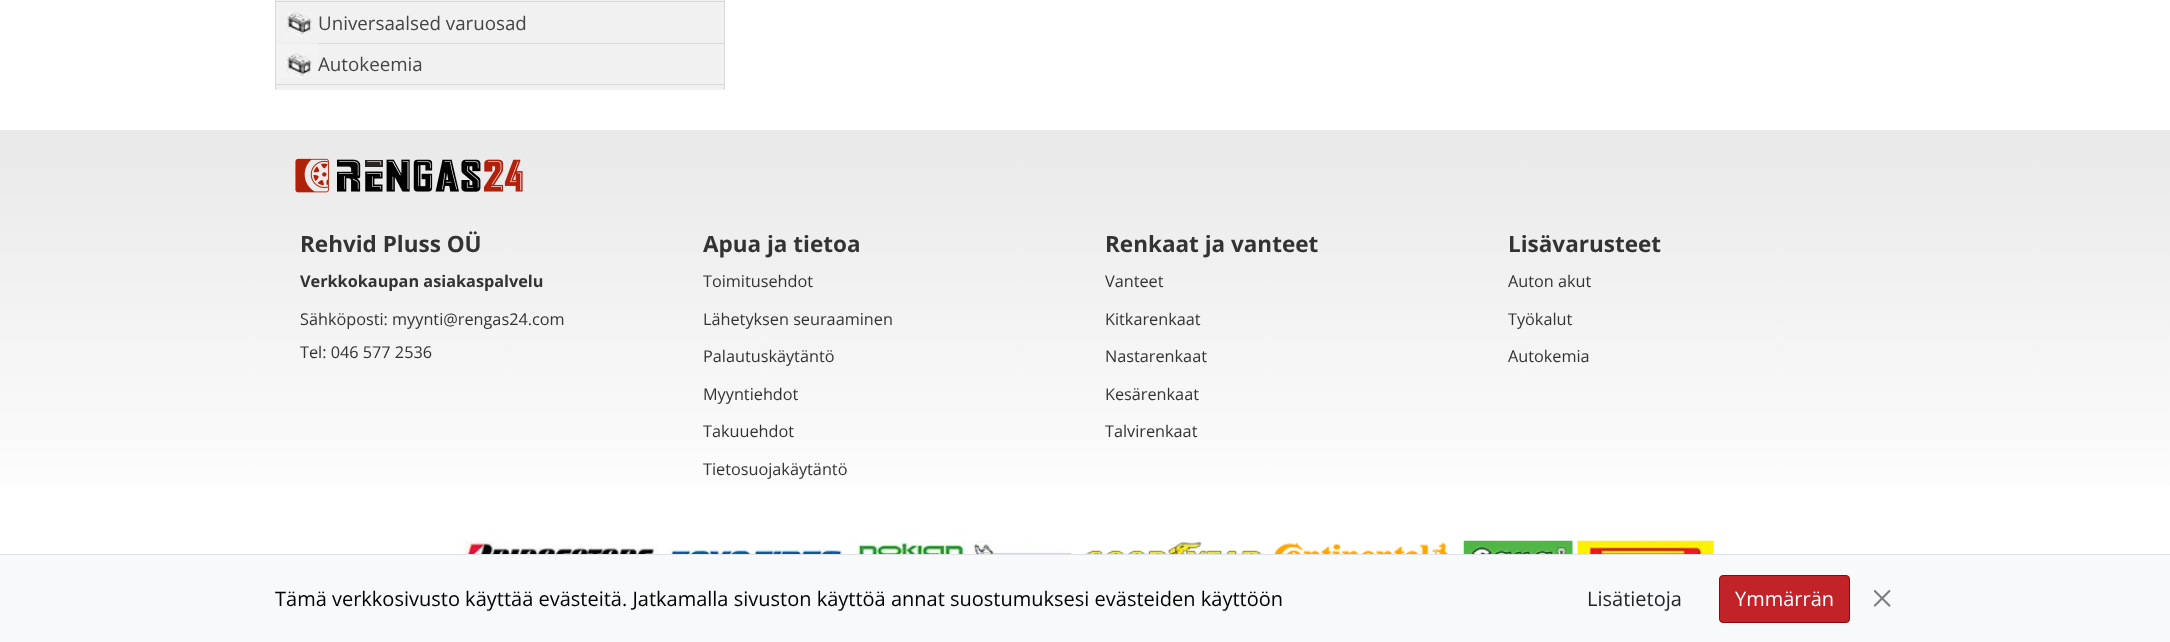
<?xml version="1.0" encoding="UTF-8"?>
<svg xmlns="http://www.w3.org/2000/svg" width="2170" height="642">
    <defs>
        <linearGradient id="g1" gradientUnits="userSpaceOnUse" x1="1085" y1="130" x2="1085" y2="533"><stop offset="0.05" stop-color="#EAEAEA"/><stop offset="1" stop-color="#FFFFFF"/></linearGradient>
    </defs>
    <rect width="100%" height="100%" fill="#FFFFFF"/>
    <rect x="276" y="0" width="448" height="90" fill="#F1F1F1"/>
    <rect x="724" y="0" width="1" height="90" fill="#D9D9D9"/>
    <rect x="275" y="0" width="1" height="90" fill="#D9D9D9"/>
    <rect x="276" y="1" width="448" height="1" fill="#D9D9D9"/>
    <image x="286" y="12" width="26" height="25" href="img_01.png"/>
    <rect x="276" y="43" width="448" height="1" fill="#D9D9D9"/>
    <text x="318" y="30" font-family="Open Sans" font-size="18.75" fill="#444444">Universaalsed varuosad</text>
    <image x="276" y="43" width="42" height="35" href="img_02.png"/>
    <rect x="276" y="84" width="448" height="1" fill="#D9D9D9"/>
    <text x="318" y="71" font-family="Open Sans" font-size="18.75" fill="#444444">Autokeemia</text>
    <rect x="0" y="130" width="2170" height="357" fill="url(#g1)"/>
    <image x="295" y="158" width="228" height="35" href="img_03.png"/>
    <text x="300" y="252" font-family="Open Sans" font-size="22.5" font-weight="700" fill="#333333">Rehvid Pluss OÜ</text>
    <text x="300" y="287" font-family="Open Sans" font-size="16.25" font-weight="700" fill="#333333">Verkkokaupan asiakaspalvelu</text>
    <text x="300" y="325" font-family="Open Sans" font-size="16.25" fill="#333333">Sähköposti: myynti@rengas24.com</text>
    <text x="300" y="358" font-family="Open Sans" font-size="16.25" fill="#333333">Tel: 046 577 2536</text>
    <text x="703" y="252" font-family="Open Sans" font-size="22.5" font-weight="700" fill="#333333">Apua ja tietoa</text>
    <text x="703" y="287" font-family="Open Sans" font-size="16.25" fill="#333333">Toimitusehdot</text>
    <text x="703" y="325" font-family="Open Sans" font-size="16.25" fill="#333333">Lähetyksen seuraaminen</text>
    <text x="703" y="362" font-family="Open Sans" font-size="16.25" fill="#333333">Palautuskäytäntö</text>
    <text x="703" y="400" font-family="Open Sans" font-size="16.25" fill="#333333">Myyntiehdot</text>
    <text x="703" y="437" font-family="Open Sans" font-size="16.25" fill="#333333">Takuuehdot</text>
    <text x="703" y="475" font-family="Open Sans" font-size="16.25" fill="#333333">Tietosuojakäytäntö</text>
    <text x="1105" y="252" font-family="Open Sans" font-size="22.5" font-weight="700" fill="#333333">Renkaat ja vanteet</text>
    <text x="1105" y="287" font-family="Open Sans" font-size="16.25" fill="#333333">Vanteet</text>
    <text x="1105" y="325" font-family="Open Sans" font-size="16.25" fill="#333333">Kitkarenkaat</text>
    <text x="1105" y="362" font-family="Open Sans" font-size="16.25" fill="#333333">Nastarenkaat</text>
    <text x="1105" y="400" font-family="Open Sans" font-size="16.25" fill="#333333">Kesärenkaat</text>
    <text x="1105" y="437" font-family="Open Sans" font-size="16.25" fill="#333333">Talvirenkaat</text>
    <text x="1508" y="252" font-family="Open Sans" font-size="22.5" font-weight="700" fill="#333333">Lisävarusteet</text>
    <text x="1508" y="287" font-family="Open Sans" font-size="16.25" fill="#333333">Auton akut</text>
    <text x="1508" y="325" font-family="Open Sans" font-size="16.25" fill="#333333">Työkalut</text>
    <text x="1508" y="362" font-family="Open Sans" font-size="16.25" fill="#333333">Autokemia</text>
    <image x="457" y="540" width="201" height="14" href="img_04.png"/>
    <image x="667" y="549" width="176" height="5" href="img_05.png"/>
    <image x="855" y="540" width="111" height="14" href="img_06.png"/>
    <image x="971" y="540" width="101" height="14" href="img_07.png"/>
    <image x="1086" y="541" width="176" height="13" href="img_08.png"/>
    <image x="1273" y="542" width="176" height="12" href="img_09.png"/>
    <image x="1463" y="540" width="110" height="14" href="img_10.png"/>
    <image x="1577" y="540" width="137" height="14" href="img_11.png"/>
    <rect x="0" y="555" width="2170" height="87" fill="#F8F9FA"/>
    <rect x="0" y="554" width="2170" height="1" fill="#DEE2E6"/>
    <text x="275" y="606" font-family="Open Sans" font-size="20" fill="#000000">Tämä verkkosivusto käyttää evästeitä. Jatkamalla sivuston käyttöä annat suostumuksesi evästeiden käyttöön</text>
    <text x="1587" y="606" font-family="Open Sans" font-size="20" fill="#212529">Lisätietoja</text>
    <rect x="1719.5" y="575.5" width="130" height="47" rx="3.5" fill="#C12328" stroke="#880A0A"/>
    <text x="1735" y="606" font-family="Open Sans" font-size="20" fill="#FFFFFF">Ymmärrän</text>
    <image x="1874" y="590" width="17" height="17" href="img_12.png"/>
</svg>
